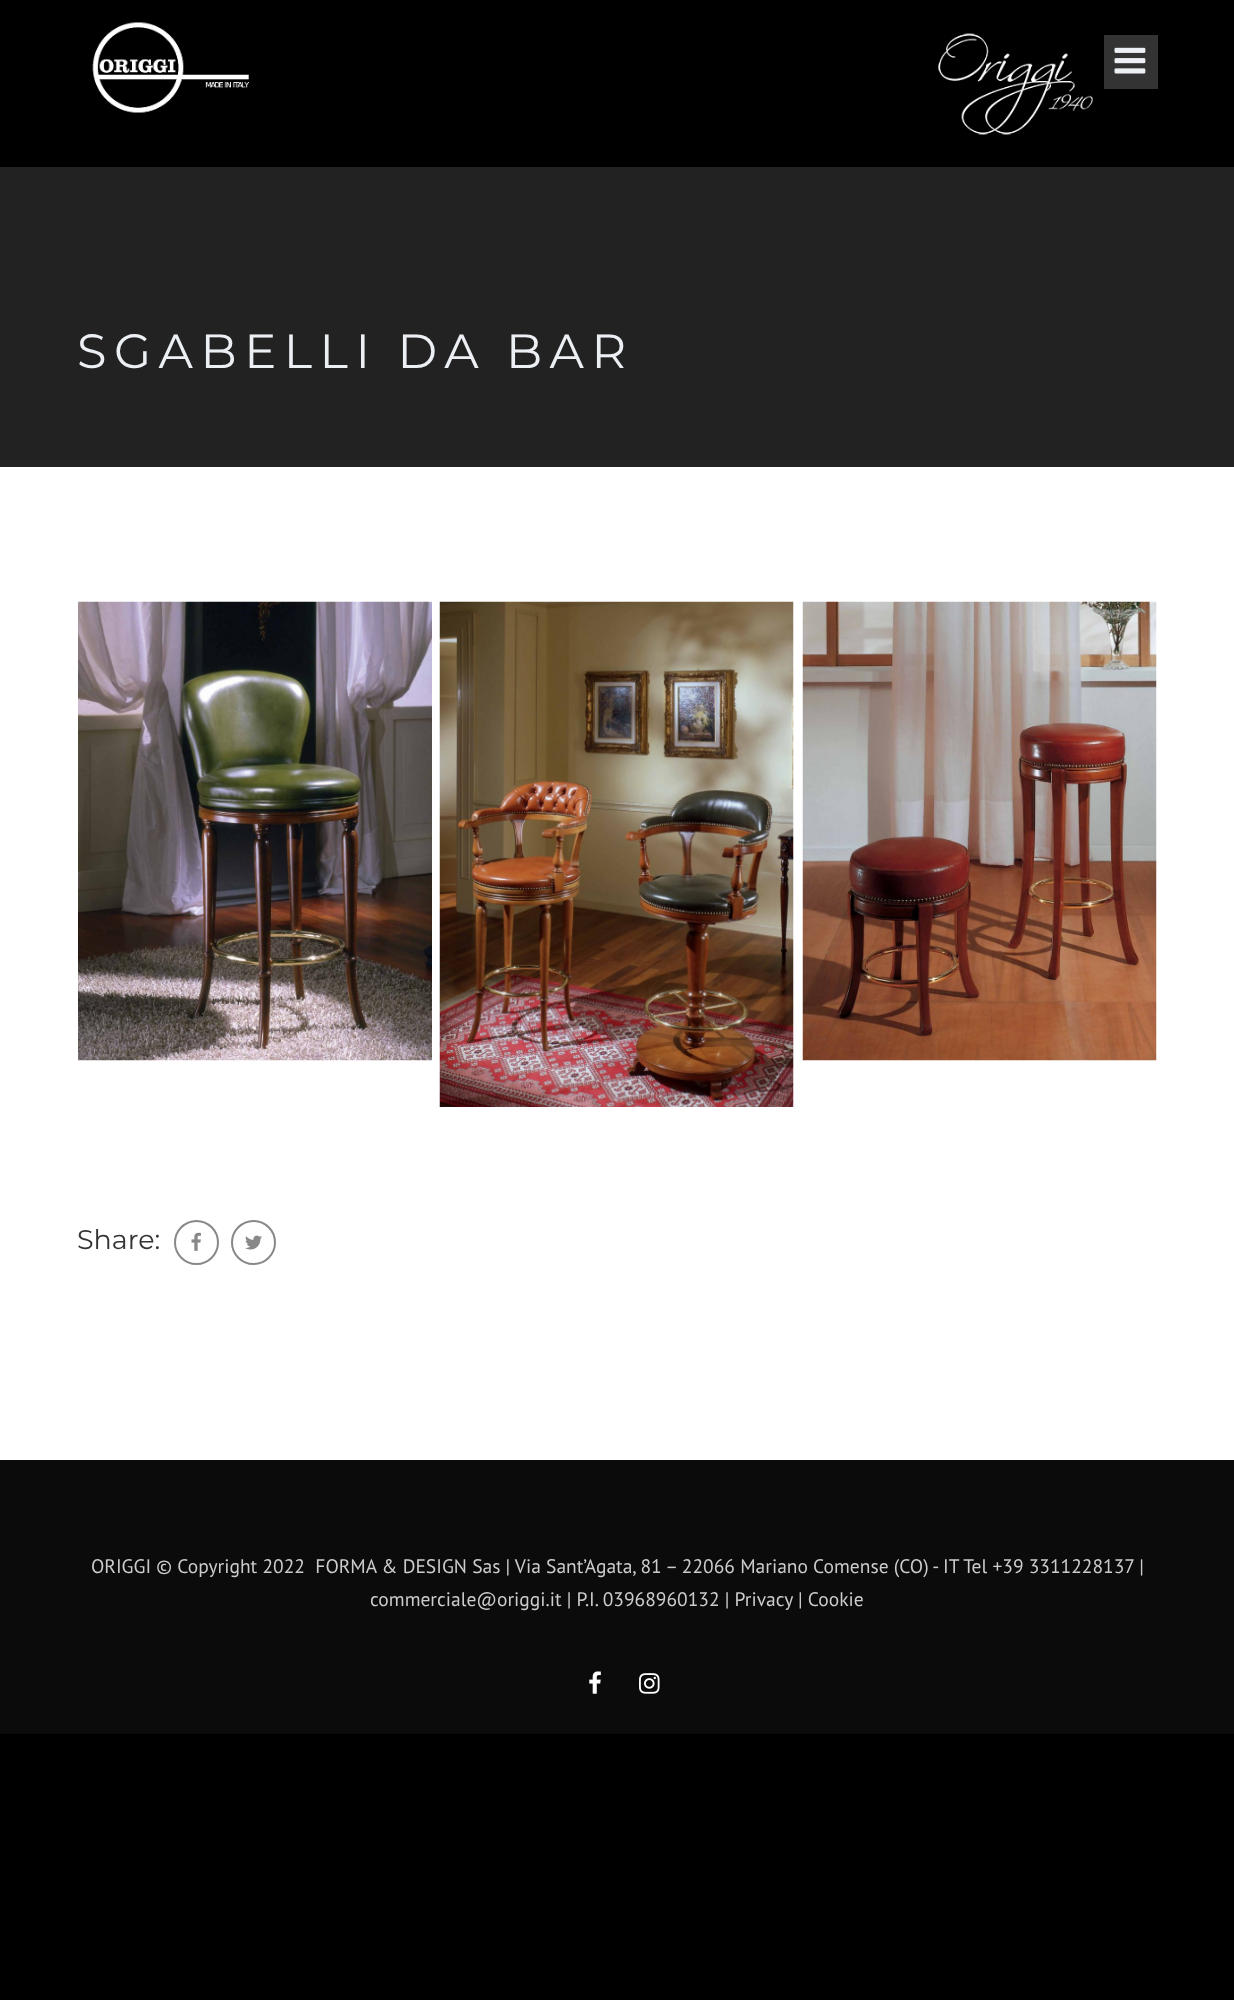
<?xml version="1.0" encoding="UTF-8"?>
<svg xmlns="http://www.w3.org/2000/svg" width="1234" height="2000">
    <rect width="100%" height="100%" fill="#000000"/>
    <rect x="0" y="467" width="1234" height="993" fill="#FFFFFF"/>
    <image x="92" y="22" width="157" height="91" href="img_01.png"/>
    <image x="938" y="33" width="155" height="102" href="img_02.png"/>
    <rect x="1104" y="35" width="54" height="54" fill="#333333"/>
    <image x="1114" y="47" width="32" height="27" href="img_03.png"/>
    <rect x="0" y="167" width="1234" height="300" fill="#222222"/>
    <text x="77" y="368" font-family="Montserrat" font-size="48" letter-spacing="7.5" fill="#ECEFF3">SGABELLI DA BAR</text>
    <image x="78" y="601" width="354" height="460" href="img_04.png"/>
    <image x="439" y="601" width="355" height="506" href="img_05.png"/>
    <image x="802" y="601" width="355" height="460" href="img_06.png"/>
    <text x="77" y="1249" font-family="Montserrat" font-size="27" fill="#333333">Share:</text>
    <circle cx="196.5" cy="1242.5" r="21.5" fill="none" stroke="#888888" stroke-width="2"/>
    <image x="191" y="1232" width="10" height="19" href="img_07.png"/>
    <circle cx="253.5" cy="1242.5" r="21.5" fill="none" stroke="#888888" stroke-width="2"/>
    <image x="245" y="1235" width="17" height="15" href="img_08.png"/>
    <rect x="0" y="1460" width="1234" height="274" fill="#0B0B0B"/>
    <text x="91" y="1573" font-family="PT Sans" font-size="19.5" fill="#CCCCCC" xml:space="preserve">ORIGGI © Copyright 2022  FORMA &amp; DESIGN Sas | Via Sant’Agata, 81 – 22066 Mariano Comense (CO) - IT Tel +39 3311228137 |</text>
    <text x="370" y="1606" font-family="PT Sans" font-size="19.5" fill="#CCCCCC">commerciale@origgi.it | P.I. 03968960132 | Privacy</text>
    <text x="798" y="1606" font-family="PT Sans" font-size="19.5" fill="#CCCCCC">| Cookie</text>
    <image x="589" y="1671" width="12" height="23" href="img_09.png"/>
    <image x="639" y="1673" width="21" height="21" href="img_10.png"/>
</svg>
